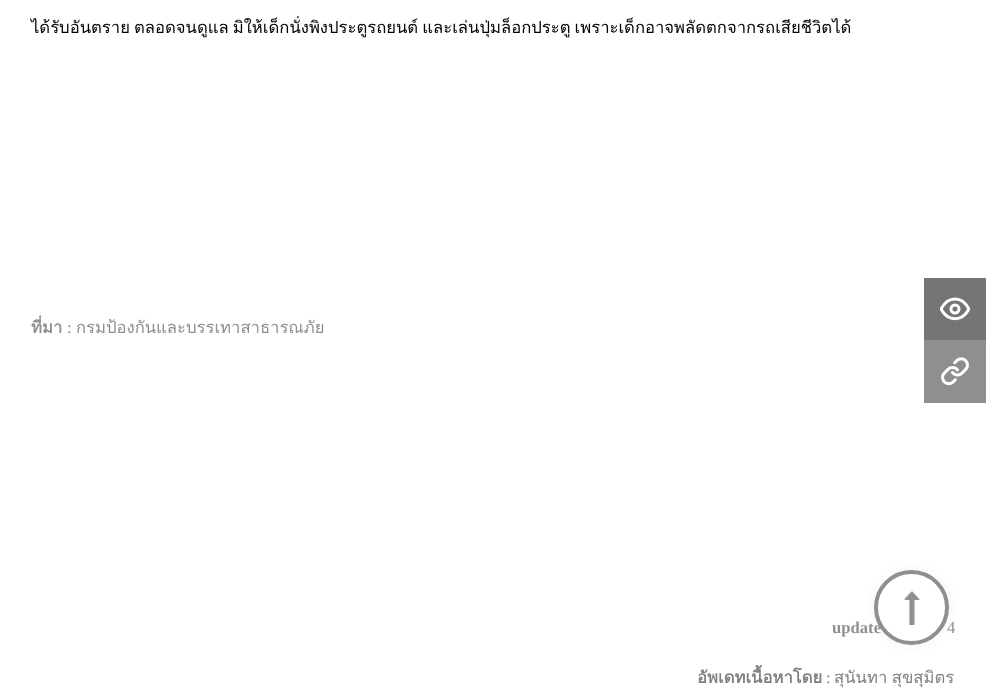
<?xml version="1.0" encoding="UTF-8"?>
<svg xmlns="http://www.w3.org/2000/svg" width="986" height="695">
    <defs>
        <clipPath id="clip1"><rect x="940" y="294" width="30" height="30"/></clipPath>
        <filter id="blur1" x="-50%" y="-200%" width="200%" height="500%"><feGaussianBlur stdDeviation="6"/></filter>
    </defs>
    <rect width="100%" height="100%" fill="#FFFFFF"/>
    <text x="31" y="33" word-spacing="-1.5" font-family="Loma" font-size="16.65" fill="#000000">ได้รับอันตราย ตลอดจนดูแล มิให้เด็กนั่งพิงประตูรถยนต์ และเล่นปุ่มล็อกประตู เพราะเด็กอาจพลัดตกจากรถเสียชีวิตได้</text>
    <text x="31" y="333" font-family="Loma" font-size="16.65" font-weight="700" fill="#8F8F8F">ที่มา</text>
    <text x="67" y="333" font-family="Liberation Serif" font-size="16.65" fill="#8F8F8F">:</text>
    <text x="76" y="333" font-family="Loma" font-size="16.65" fill="#8F8F8F">กรมป้องกันและบรรเทาสาธารณภัย</text>
    <text x="832" y="633" font-family="Liberation Serif" font-size="16.65" font-weight="700" fill="#8F8F8F">update</text>
    <text x="947" y="633" font-family="Liberation Serif" font-size="16.65" fill="#8F8F8F">4</text>
    <text x="697" y="683" font-family="Loma" font-size="16.65" font-weight="700" fill="#7F7F7F">อัพเดทเนื้อหาโดย</text>
    <text x="826" y="683" font-family="Liberation Serif" font-size="16.65" fill="#7F7F7F">:</text>
    <text x="834" y="683" word-spacing="-1" font-family="Loma" font-size="16.65" fill="#7F7F7F">สุนันทา สุขสุมิตร</text>
    <rect x="924" y="340" width="62" height="63" fill="#8F8F8F"/>
    <rect x="924" y="278" width="62" height="62" fill="#757575"/>
    <g clip-path="url(#clip1)">
        <path d="M 941 309 C 948 295.5 962 295.5 969 309 C 962 322 948 322 941 309 Z" fill="none" stroke="#FFFFFF" stroke-width="3" stroke-linecap="round" stroke-linejoin="round"/>
    </g>
    <circle cx="955" cy="309" r="4" fill="none" stroke="#FFFFFF" stroke-width="3"/>
    <image x="941" y="357" width="28" height="29" href="img_01.png"/>
    <rect x="874" y="570" width="75" height="75" rx="37.5" fill="#000000" fill-opacity="0.05" filter="url(#blur1)"/>
    <circle cx="911.5" cy="607.5" r="37.5" fill="#FFFFFF"/>
    <image x="904" y="591" width="16" height="34" href="img_02.png"/>
    <circle cx="911.5" cy="607.5" r="35.5" fill="none" stroke="#8F8F8F" stroke-width="4"/>
</svg>
